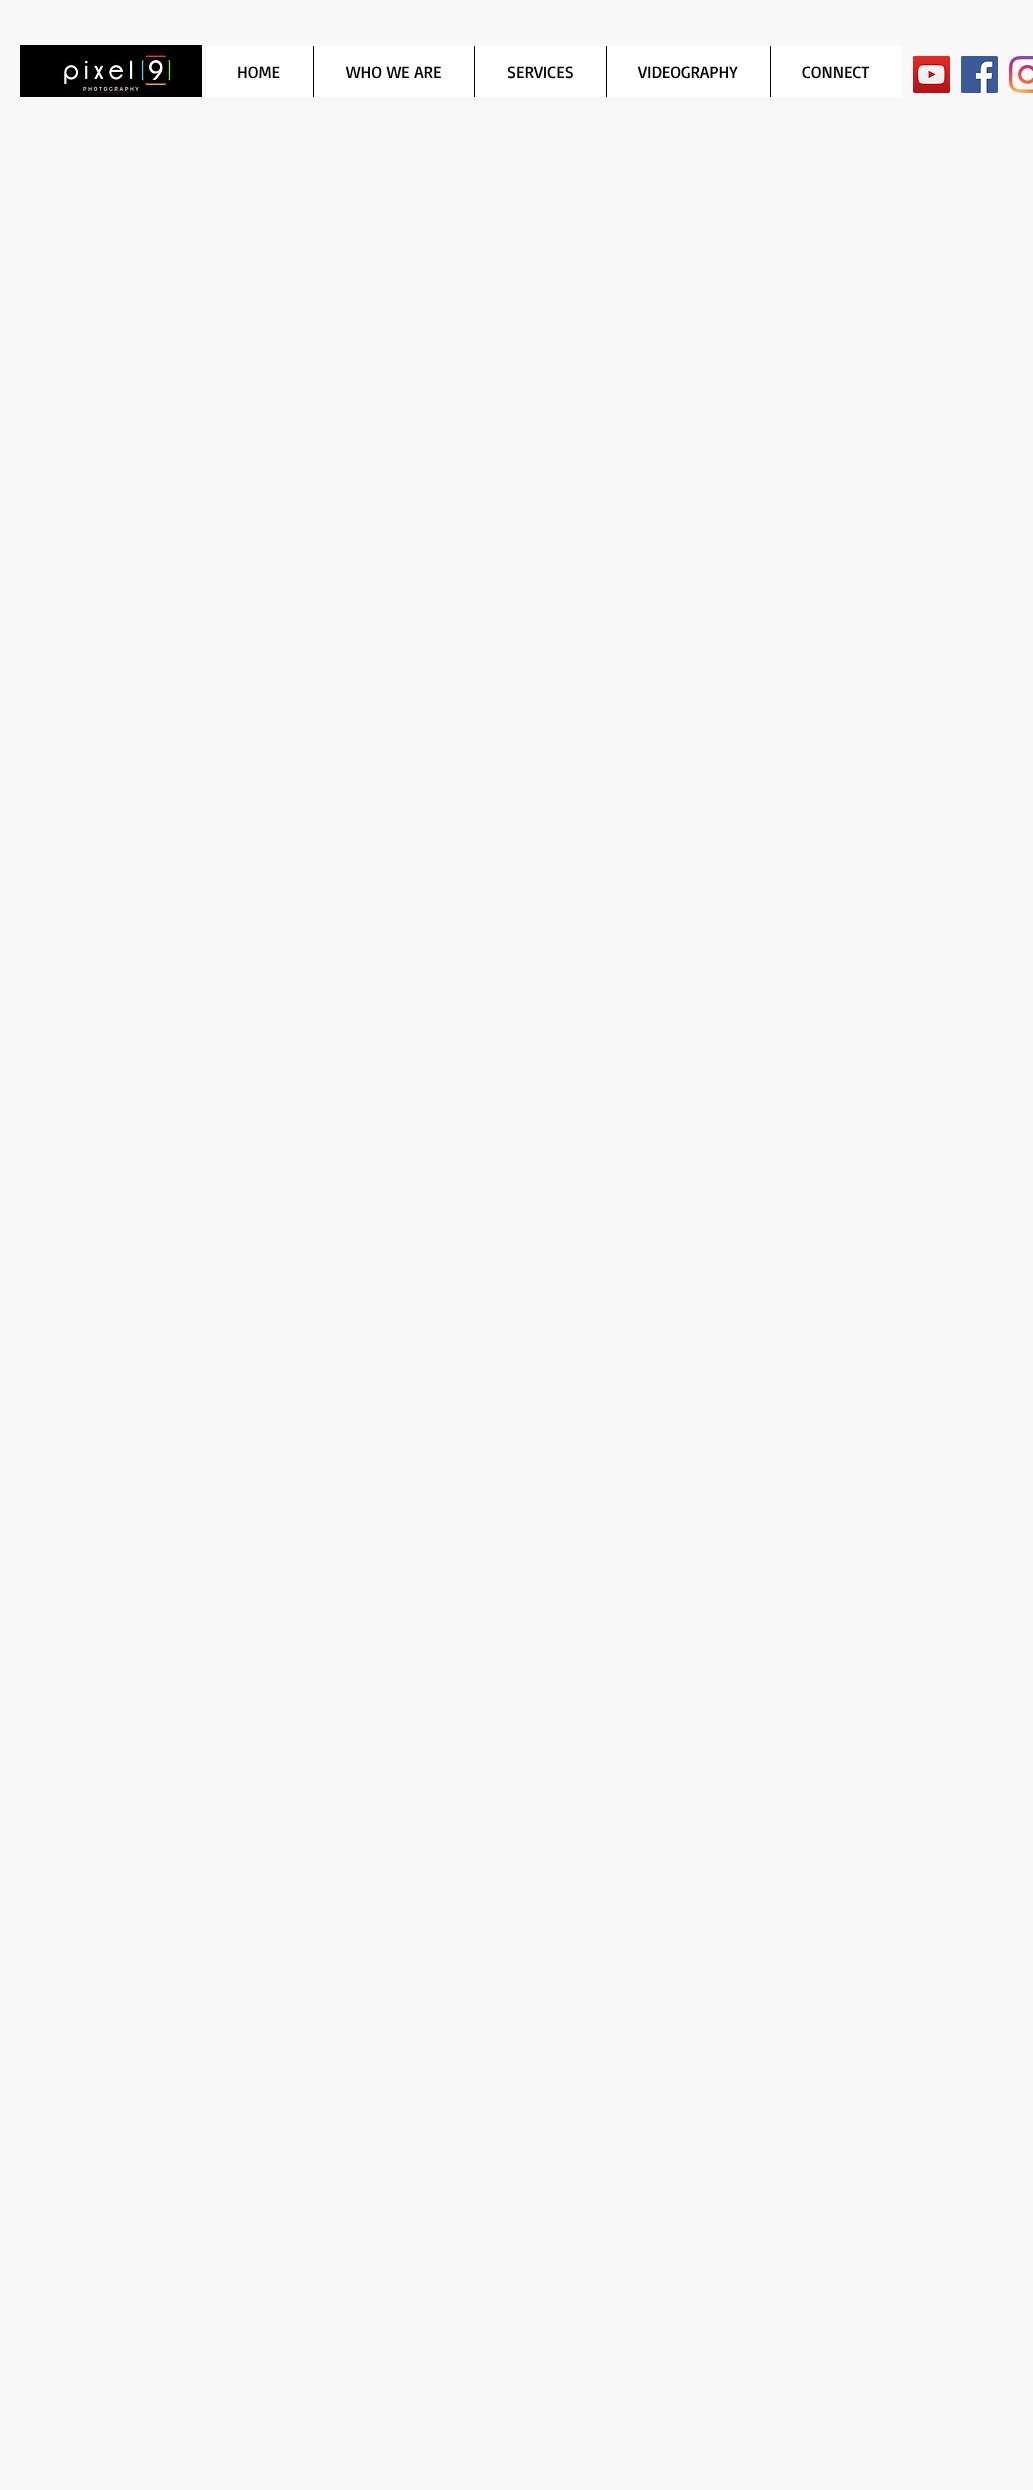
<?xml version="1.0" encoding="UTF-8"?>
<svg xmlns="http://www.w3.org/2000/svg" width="1033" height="2490">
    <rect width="100%" height="100%" fill="#F8F8F8"/>
    <rect x="20" y="45" width="182" height="52" fill="#000000"/>
    <image x="62" y="53" width="111" height="41" href="img_01.png"/>
    <rect x="206" y="46" width="695" height="51" fill="#FFFFFF"/>
    <text x="237" y="78" font-family="Basic" font-size="17" fill="#000000">HOME</text>
    <rect x="313" y="46" width="1" height="51" fill="#000000"/>
    <text x="346" y="78" font-family="Basic" font-size="17" fill="#000000">WHO WE ARE</text>
    <rect x="474" y="46" width="1" height="51" fill="#000000"/>
    <text x="507" y="78" font-family="Basic" font-size="17" fill="#000000">SERVICES</text>
    <rect x="606" y="46" width="1" height="51" fill="#000000"/>
    <text x="638" y="78" font-family="Basic" font-size="17" fill="#000000">VIDEOGRAPHY</text>
    <rect x="770" y="46" width="1" height="51" fill="#000000"/>
    <text x="802" y="78" font-family="Basic" font-size="17" fill="#000000">CONNECT</text>
    <image x="913" y="56" width="37" height="37" href="img_02.png"/>
    <image x="961" y="56" width="37" height="37" href="img_03.png"/>
    <image x="1009" y="56" width="24" height="37" href="img_04.png"/>
</svg>
